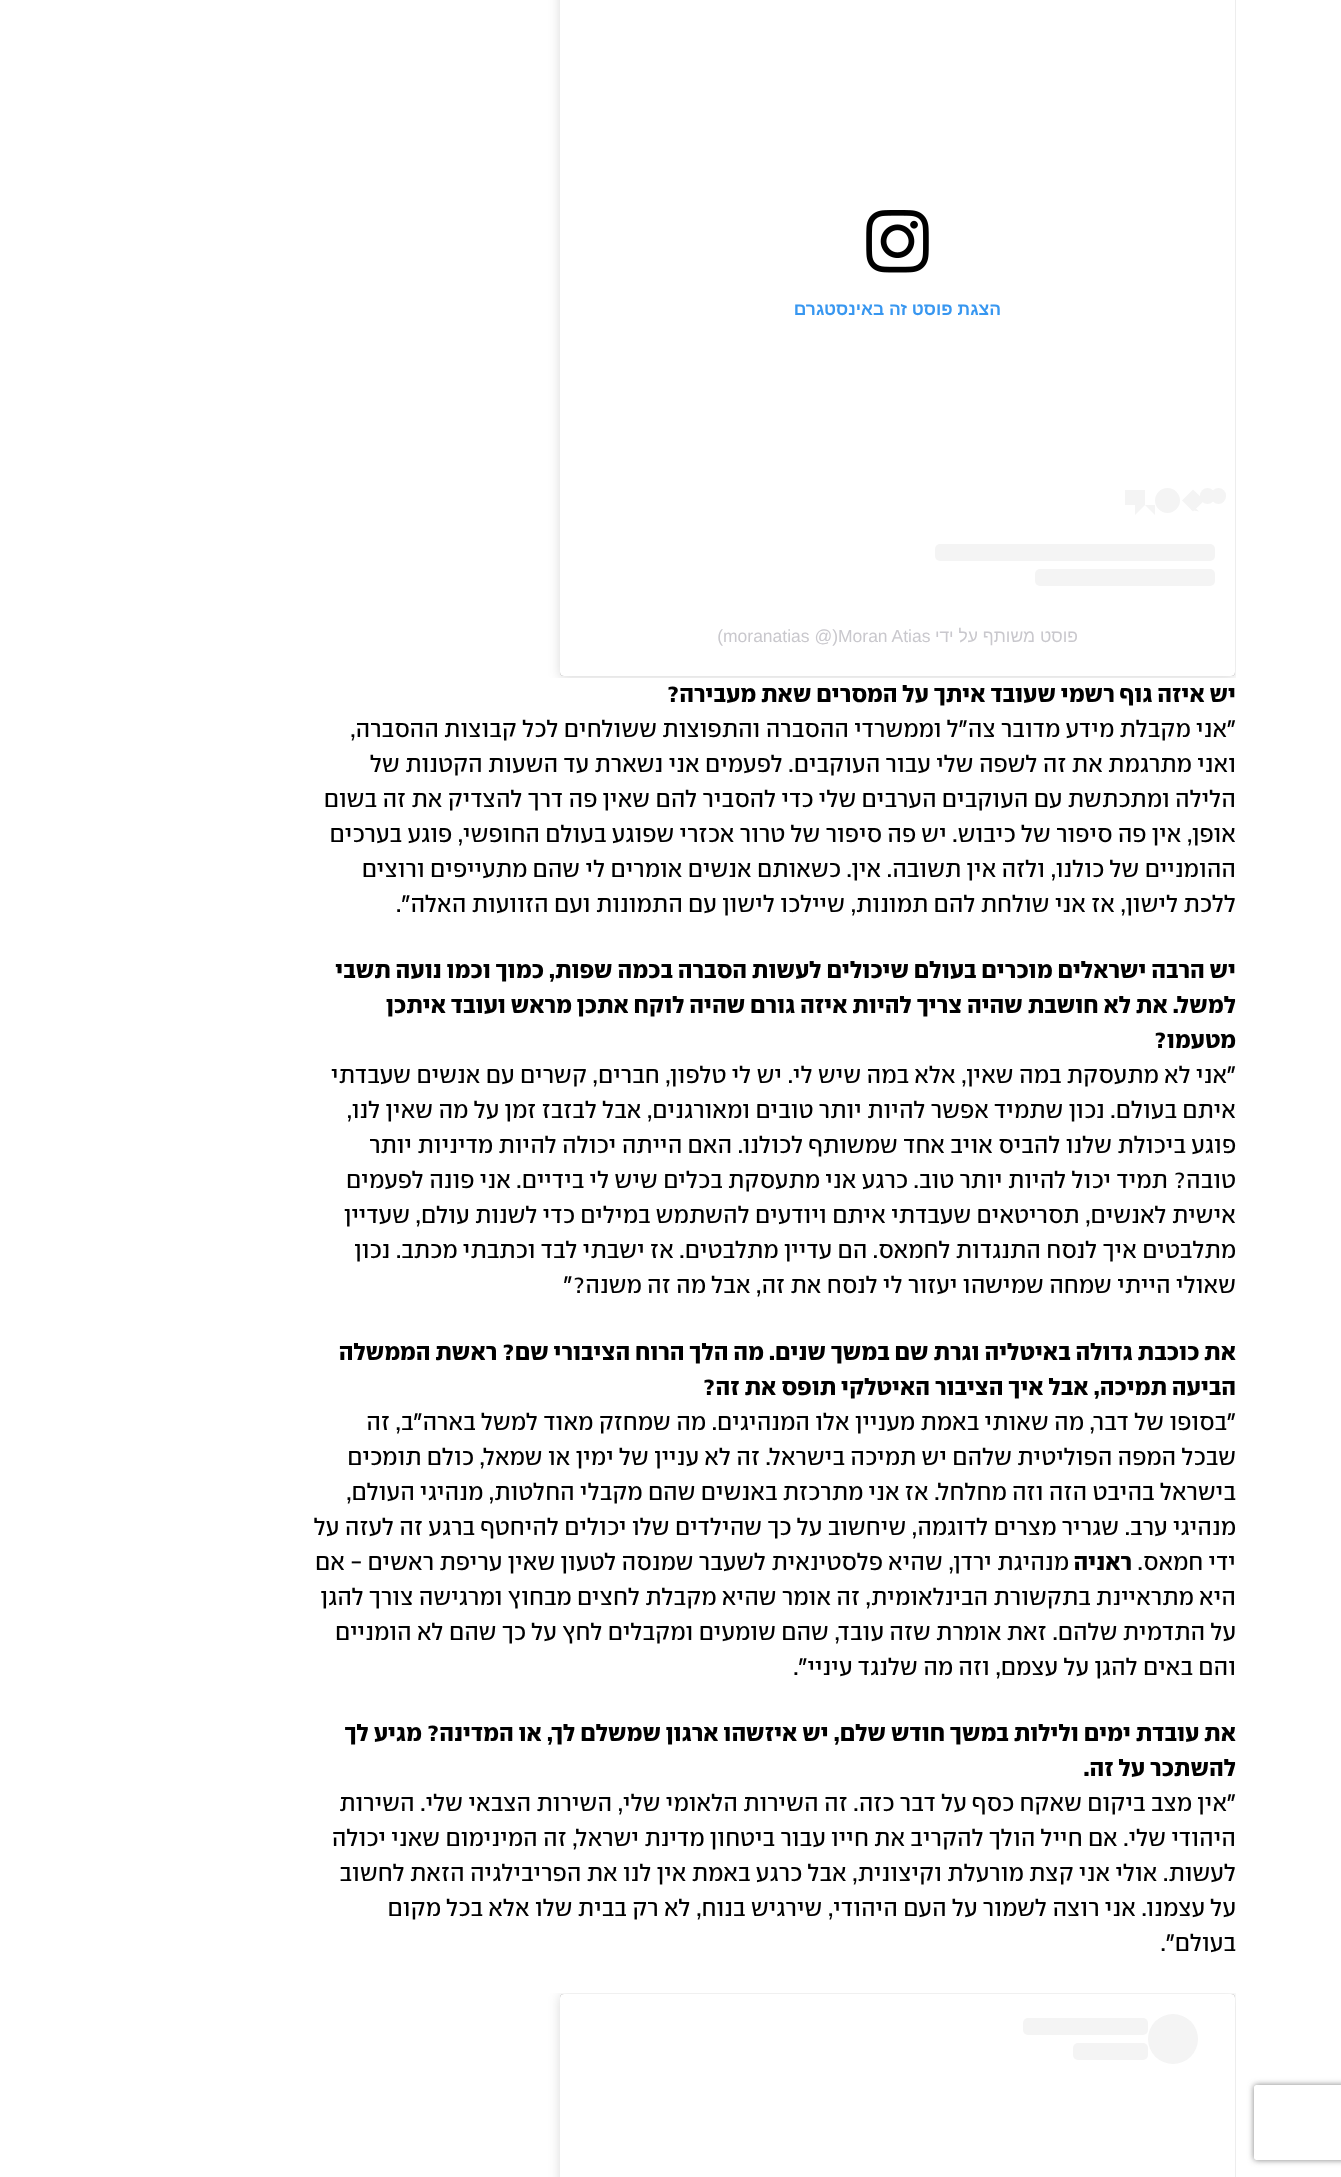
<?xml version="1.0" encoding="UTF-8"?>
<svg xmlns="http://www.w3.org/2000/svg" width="1341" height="2177">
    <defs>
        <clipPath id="clip1"><rect x="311" y="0" width="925" height="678"/></clipPath>
        <filter id="blur1" x="-50%" y="-200%" width="200%" height="500%"><feGaussianBlur stdDeviation="6"/></filter>
        <filter id="blur2" x="-50%" y="-200%" width="200%" height="500%"><feGaussianBlur stdDeviation="0.5"/></filter>
        <clipPath id="clip2"><rect x="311" y="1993" width="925" height="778"/></clipPath>
        <clipPath id="clip3"><path d="M 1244 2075 H 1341 V 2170 H 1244 Z M 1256.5 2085 H 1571.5 C 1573 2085 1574 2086 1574 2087.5 V 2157.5 C 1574 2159 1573 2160 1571.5 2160 H 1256.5 C 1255 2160 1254 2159 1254 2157.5 V 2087.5 C 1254 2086 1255 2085 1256.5 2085 Z" clip-rule="evenodd"/></clipPath>
        <filter id="blur3" x="-50%" y="-200%" width="200%" height="500%"><feGaussianBlur stdDeviation="3"/></filter>
    </defs>
    <rect width="100%" height="100%" fill="#FFFFFF"/>
    <g clip-path="url(#clip1)">
        <rect x="560" y="-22" width="675" height="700" rx="4" fill="#000000" fill-opacity="0.15" filter="url(#blur1)"/>
    </g>
    <rect x="560" y="-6" width="675" height="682" rx="4" fill="#000000" fill-opacity="0.5" filter="url(#blur2)"/>
    <rect x="560" y="-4" width="675" height="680" rx="4" fill="#FFFFFF"/>
    <image x="866" y="210" width="63" height="63" href="img_01.png"/>
    <text x="1001" y="315" font-family="Liberation Sans" font-size="17.5" font-weight="700" direction="rtl" fill="#3897F0">הצגת פוסט זה באינסטגרם</text>
    <rect x="1200" y="488" width="15" height="16" rx="7.5" fill="#F4F4F4"/>
    <rect x="1211" y="488" width="15" height="16" rx="7.5" fill="#F4F4F4"/>
    <path d="M 1182 500.5 L 1193 489.5 L 1204.5 500.5 L 1193 511.5 Z" fill="#F4F4F4"/>
    <path d="M 1191 510 L 1193.5 506 L 1199 511.5 Z" fill="#F4F4F4"/>
    <circle cx="1167.5" cy="500.5" r="12.5" fill="#F4F4F4"/>
    <rect x="1125" y="490" width="20" height="15" fill="#F4F4F4"/>
    <path d="M 1145 505 H 1155 V 515 Z" fill="#F4F4F4"/>
    <path d="M 1135 505 H 1145 L 1135 515 Z" fill="#F4F4F4"/>
    <rect x="935" y="544" width="280" height="17" rx="5" fill="#F4F4F4"/>
    <rect x="1035" y="569" width="180" height="17" rx="5" fill="#F4F4F4"/>
    <text x="1078" y="642" font-family="Liberation Sans" font-size="17.5" direction="rtl" fill="#C9C8CD">פוסט משותף על ידי </text>
    <text x="838" y="642" font-family="Liberation Sans" font-size="17.5" fill="#C9C8CD">Moran Atias</text>
    <text x="838" y="642" font-family="Liberation Sans" font-size="17.5" direction="rtl" fill="#C9C8CD"> (@</text>
    <text x="723" y="642" font-family="Liberation Sans" font-size="17.5" fill="#C9C8CD">moranatias</text>
    <text x="723" y="642" font-family="Liberation Sans" font-size="17.5" direction="rtl" fill="#C9C8CD">)</text>
    <text x="1236" y="702" font-family="'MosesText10'" font-size="22.5" font-weight="700" letter-spacing="-0.15" direction="rtl" fill="#000000">יש איזה גוף רשמי שעובד איתך על המסרים שאת מעבירה?</text>
    <text font-family="'MosesText10'" font-size="22.5" font-weight="300" letter-spacing="-0.15" direction="rtl" fill="#000000">
        <tspan x="1236" y="737">"אני מקבלת מידע מדובר צה"ל וממשרדי ההסברה והתפוצות ששולחים לכל קבוצות ההסברה,</tspan>
        <tspan x="1236" y="772">ואני מתרגמת את זה לשפה שלי עבור העוקבים. לפעמים אני נשארת עד השעות הקטנות של</tspan>
        <tspan x="1236" y="807">הלילה ומתכתשת עם העוקבים הערבים שלי כדי להסביר להם שאין פה דרך להצדיק את זה בשום</tspan>
        <tspan x="1236" y="842">אופן, אין פה סיפור של כיבוש. יש פה סיפור של טרור אכזרי שפוגע בעולם החופשי, פוגע בערכים</tspan>
        <tspan x="1236" y="877">ההומניים של כולנו, ולזה אין תשובה. אין. כשאותם אנשים אומרים לי שהם מתעייפים ורוצים</tspan>
        <tspan x="1236" y="912">ללכת לישון, אז אני שולחת להם תמונות, שיילכו לישון עם התמונות ועם הזוועות האלה".</tspan>
    </text>
    <text font-family="'MosesText10'" font-size="22.5" font-weight="700" letter-spacing="-0.15" direction="rtl" fill="#000000">
        <tspan x="1236" y="978">יש הרבה ישראלים מוכרים בעולם שיכולים לעשות הסברה בכמה שפות, כמוך וכמו נועה תשבי</tspan>
        <tspan x="1236" y="1013">למשל. את לא חושבת שהיה צריך להיות איזה גורם שהיה לוקח אתכן מראש ועובד איתכן</tspan>
        <tspan x="1236" y="1048">מטעמו?</tspan>
    </text>
    <text font-family="'MosesText10'" font-size="22.5" font-weight="300" letter-spacing="-0.15" direction="rtl" fill="#000000">
        <tspan x="1236" y="1083">"אני לא מתעסקת במה שאין, אלא במה שיש לי. יש לי טלפון, חברים, קשרים עם אנשים שעבדתי</tspan>
        <tspan x="1236" y="1118">איתם בעולם. נכון שתמיד אפשר להיות יותר טובים ומאורגנים, אבל לבזבז זמן על מה שאין לנו,</tspan>
        <tspan x="1236" y="1153">פוגע ביכולת שלנו להביס אויב אחד שמשותף לכולנו. האם הייתה יכולה להיות מדיניות יותר</tspan>
        <tspan x="1236" y="1188">טובה? תמיד יכול להיות יותר טוב. כרגע אני מתעסקת בכלים שיש לי בידיים. אני פונה לפעמים</tspan>
        <tspan x="1236" y="1223">אישית לאנשים, תסריטאים שעבדתי איתם ויודעים להשתמש במילים כדי לשנות עולם, שעדיין</tspan>
        <tspan x="1236" y="1258">מתלבטים איך לנסח התנגדות לחמאס. הם עדיין מתלבטים. אז ישבתי לבד וכתבתי מכתב. נכון</tspan>
        <tspan x="1236" y="1293">שאולי הייתי שמחה שמישהו יעזור לי לנסח את זה, אבל מה זה משנה?"</tspan>
    </text>
    <text font-family="'MosesText10'" font-size="22.5" font-weight="700" letter-spacing="-0.15" direction="rtl" fill="#000000">
        <tspan x="1236" y="1360">את כוכבת גדולה באיטליה וגרת שם במשך שנים. מה הלך הרוח הציבורי שם? ראשת הממשלה</tspan>
        <tspan x="1236" y="1395">הביעה תמיכה, אבל איך הציבור האיטלקי תופס את זה?</tspan>
    </text>
    <text font-family="'MosesText10'" font-size="22.5" font-weight="300" letter-spacing="-0.15" direction="rtl" fill="#000000">
        <tspan x="1236" y="1430">"בסופו של דבר, מה שאותי באמת מעניין אלו המנהיגים. מה שמחזק מאוד למשל בארה"ב, זה</tspan>
        <tspan x="1236" y="1465">שבכל המפה הפוליטית שלהם יש תמיכה בישראל. זה לא עניין של ימין או שמאל, כולם תומכים</tspan>
        <tspan x="1236" y="1500">בישראל בהיבט הזה וזה מחלחל. אז אני מתרכזת באנשים שהם מקבלי החלטות, מנהיגי העולם,</tspan>
        <tspan x="1236" y="1535">מנהיגי ערב. שגריר מצרים לדוגמה, שיחשוב על כך שהילדים שלו יכולים להיחטף ברגע זה לעזה על</tspan>
        <tspan x="1236" y="1570">ידי חמאס.</tspan>
    </text>
    <text x="1132" y="1570" font-family="'MosesText10'" font-size="22.5" font-weight="700" letter-spacing="-0.15" direction="rtl" fill="#000000">ראניה</text>
    <text x="1069" y="1570" font-family="'MosesText10'" font-size="22.5" font-weight="300" letter-spacing="-0.15" direction="rtl" fill="#000000">מנהיגת ירדן, שהיא פלסטינאית לשעבר שמנסה לטעון שאין עריפת ראשים - אם</text>
    <text font-family="'MosesText10'" font-size="22.5" font-weight="300" letter-spacing="-0.15" direction="rtl" fill="#000000">
        <tspan x="1236" y="1605">היא מתראיינת בתקשורת הבינלאומית, זה אומר שהיא מקבלת לחצים מבחוץ ומרגישה צורך להגן</tspan>
        <tspan x="1236" y="1640">על התדמית שלהם. זאת אומרת שזה עובד, שהם שומעים ומקבלים לחץ על כך שהם לא הומניים</tspan>
        <tspan x="1236" y="1675">והם באים להגן על עצמם, וזה מה שלנגד עיניי".</tspan>
    </text>
    <text font-family="'MosesText10'" font-size="22.5" font-weight="700" letter-spacing="-0.15" direction="rtl" fill="#000000">
        <tspan x="1236" y="1741">את עובדת ימים ולילות במשך חודש שלם, יש איזשהו ארגון שמשלם לך, או המדינה? מגיע לך</tspan>
        <tspan x="1236" y="1776">להשתכר על זה.</tspan>
    </text>
    <text font-family="'MosesText10'" font-size="22.5" font-weight="300" letter-spacing="-0.15" direction="rtl" fill="#000000">
        <tspan x="1236" y="1811">"אין מצב ביקום שאקח כסף על דבר כזה. זה השירות הלאומי שלי, השירות הצבאי שלי. השירות</tspan>
        <tspan x="1236" y="1846">היהודי שלי. אם חייל הולך להקריב את חייו עבור ביטחון מדינת ישראל, זה המינימום שאני יכולה</tspan>
        <tspan x="1236" y="1881">לעשות. אולי אני קצת מורעלת וקיצונית, אבל כרגע באמת אין לנו את הפריבילגיה הזאת לחשוב</tspan>
        <tspan x="1236" y="1916">על עצמנו. אני רוצה לשמור על העם היהודי, שירגיש בנוח, לא רק בבית שלו אלא בכל מקום</tspan>
        <tspan x="1236" y="1951">בעולם".</tspan>
    </text>
    <g clip-path="url(#clip2)">
        <rect x="560" y="1995" width="675" height="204" rx="4" fill="#000000" fill-opacity="0.15" filter="url(#blur1)"/>
    </g>
    <rect x="560" y="1994" width="675" height="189" rx="4" fill="#000000" fill-opacity="0.5" filter="url(#blur2)"/>
    <rect x="560" y="1994" width="675" height="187" rx="4" fill="#FFFFFF"/>
    <circle cx="1173" cy="2039" r="25" fill="#F4F4F4"/>
    <rect x="1023" y="2018" width="125" height="17" rx="5" fill="#F4F4F4"/>
    <rect x="1073" y="2043" width="75" height="17" rx="5" fill="#F4F4F4"/>
    <g clip-path="url(#clip3)">
        <rect x="1254" y="2085" width="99" height="75" rx="2.5" fill="#808080" filter="url(#blur3)"/>
    </g>
</svg>
